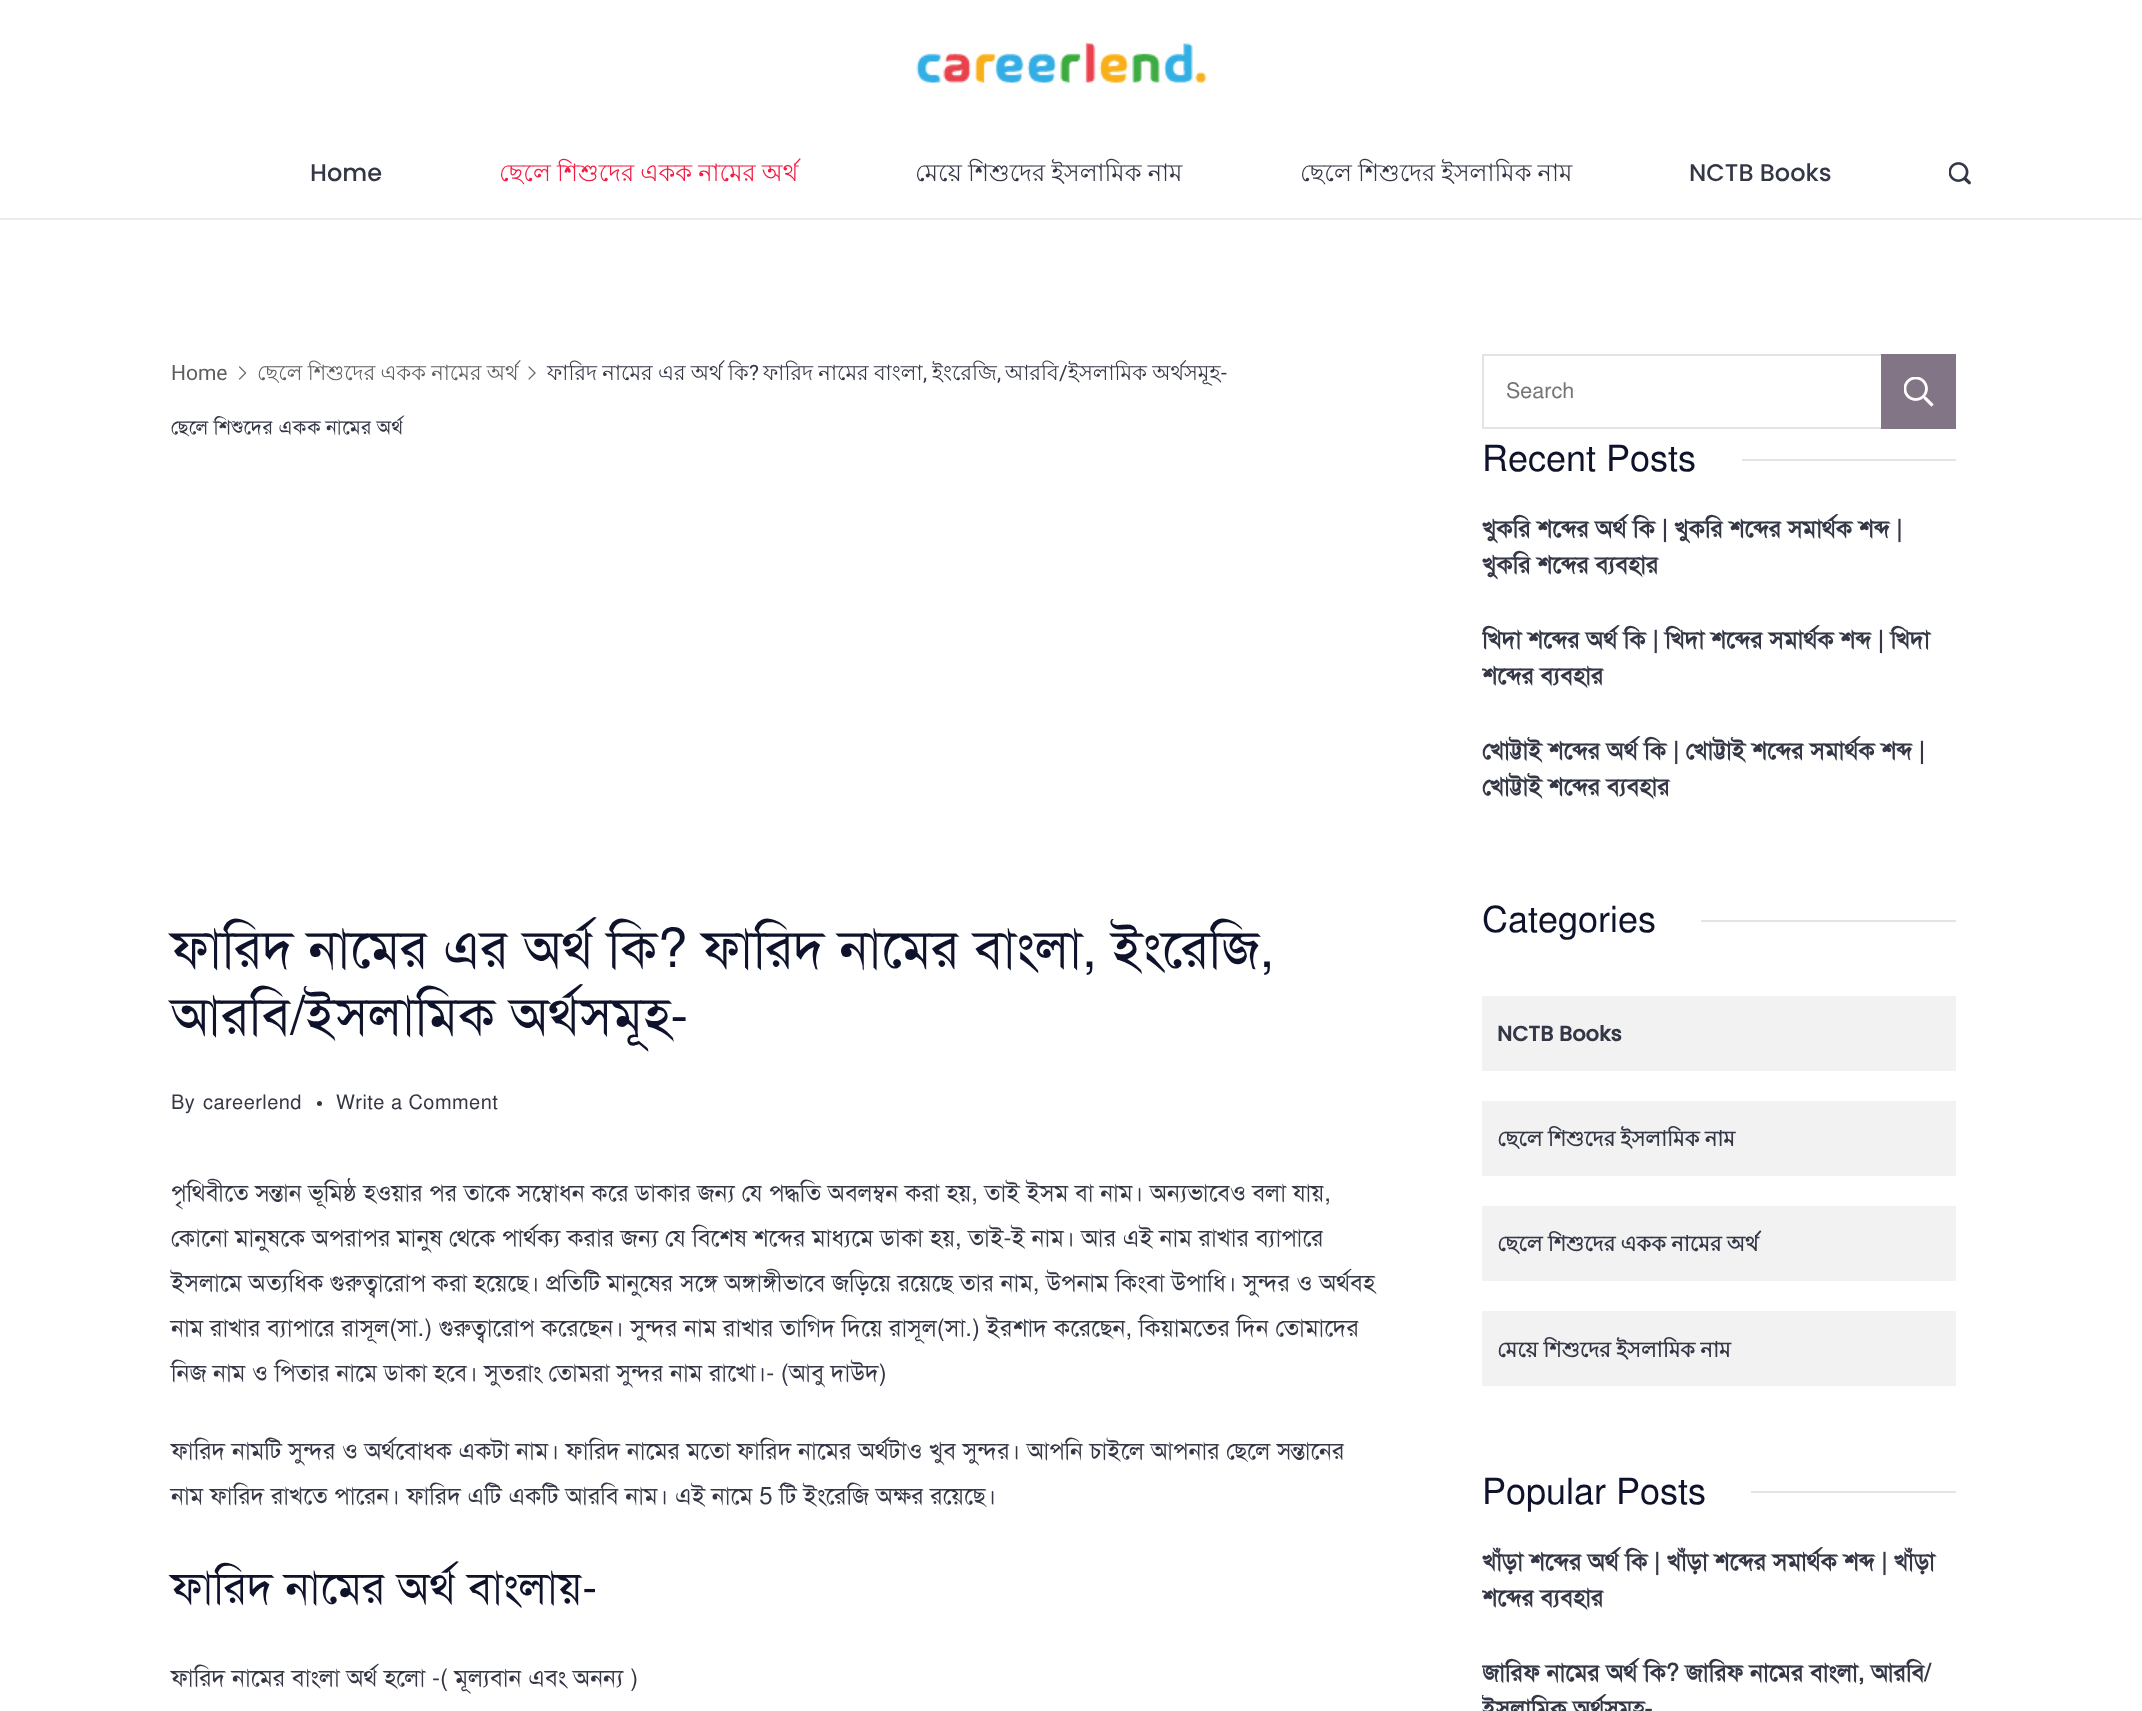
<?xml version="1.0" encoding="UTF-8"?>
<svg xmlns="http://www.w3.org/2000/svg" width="2142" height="1711">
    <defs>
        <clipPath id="clip1"><rect x="1482" y="512" width="474" height="81"/></clipPath>
        <clipPath id="clip2"><rect x="1482" y="623" width="474" height="81"/></clipPath>
        <clipPath id="clip3"><rect x="1482" y="734" width="474" height="81"/></clipPath>
        <clipPath id="clip4"><rect x="1482" y="1545" width="474" height="81"/></clipPath>
        <clipPath id="clip5"><rect x="1482" y="1656" width="474" height="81"/></clipPath>
    </defs>
    <rect width="100%" height="100%" fill="#FFFFFF"/>
    <image x="916" y="42" width="291" height="42" href="img_01.png"/>
    <rect x="0" y="218" width="2142" height="2" fill="#EBECEB"/>
    <text x="310" y="181" font-family="Poppins" font-size="24" font-weight="500" fill="#343746">Home</text>
    <text x="499" y="181" word-spacing="-0.5" font-family="Lohit Bengali" font-size="24" fill="#F21D44">ছেলে শিশুদের একক নামের অর্থ</text>
    <text x="915" y="181" word-spacing="-0.5" font-family="Lohit Bengali" font-size="24" fill="#343746">মেয়ে শিশুদের ইসলামিক নাম</text>
    <text x="1300" y="181" word-spacing="-0.5" font-family="Lohit Bengali" font-size="24" fill="#343746">ছেলে শিশুদের ইসলামিক নাম</text>
    <text x="1689" y="181" font-family="Poppins" font-size="24" font-weight="500" fill="#343746">NCTB Books</text>
    <image x="1949" y="162" width="22" height="23" href="img_02.png"/>
    <text x="171" y="380" font-family="Roboto" font-size="21" fill="#5F5F5F">Home</text>
    <image x="238" y="366" width="9" height="14" href="img_03.png"/>
    <text x="257" y="380" word-spacing="-0.5" font-family="Lohit Bengali" font-size="21" fill="#5F5F5F">ছেলে শিশুদের একক নামের অর্থ</text>
    <image x="528" y="366" width="8" height="14" href="img_04.png"/>
    <text x="547" y="380" word-spacing="-0.5" font-family="Lohit Bengali" font-size="21" fill="#343746">ফারিদ নামের এর অর্থ কি</text>
    <text x="749" y="380" font-family="Roboto" font-size="21" fill="#343746">?</text>
    <text x="763" y="380" word-spacing="-0.5" font-family="Lohit Bengali" font-size="21" fill="#343746">ফারিদ নামের বাংলা</text>
    <text x="932" y="380" font-family="Lohit Bengali" font-size="21" fill="#343746">ইংরেজি</text>
    <text x="1005" y="380" font-family="Lohit Bengali" font-size="21" fill="#343746">আরবি</text>
    <text x="1059" y="380" font-family="Roboto" font-size="21" fill="#343746">/</text>
    <text x="1068" y="380" word-spacing="-0.5" font-family="Lohit Bengali" font-size="21" fill="#343746">ইসলামিক অর্থসমূহ</text>
    <text x="1221" y="380" font-family="Roboto" font-size="21" fill="#343746">-</text>
    <text x="923" y="380" font-family="Roboto" font-size="21" fill="#343746">,</text>
    <text x="997" y="380" font-family="Roboto" font-size="21" fill="#343746">,</text>
    <text x="171" y="434" word-spacing="-1" font-family="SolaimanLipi" font-size="20" letter-spacing="0.45" fill="#343746">ছেলে শিশুদের একক নামের অর্থ</text>
    <text font-family="SolaimanLipi" font-size="54" fill="#0E132B">
        <tspan x="171" y="967">ফারিদ নামের এর অর্থ কি? ফারিদ নামের বাংলা, ইংরেজি,</tspan>
        <tspan x="171" y="1034">আরবি/ইসলামিক অর্থসমূহ-</tspan>
    </text>
    <text x="171" y="1109" font-family="SolaimanLipi" font-size="20" letter-spacing="0.45" fill="#343746">By</text>
    <text x="203" y="1109" font-family="SolaimanLipi" font-size="20" letter-spacing="0.45" fill="#343746">careerlend</text>
    <circle cx="319.5" cy="1103.5" r="2.5" fill="#343746"/>
    <text x="336" y="1109" font-family="SolaimanLipi" font-size="20" letter-spacing="0.45" fill="#343746">Write a Comment</text>
    <text font-family="SolaimanLipi" font-size="24" fill="#343746">
        <tspan x="171" y="1201">পৃথিবীতে সন্তান ভূমিষ্ঠ হওয়ার পর তাকে সম্বোধন করে ডাকার জন্য যে পদ্ধতি অবলম্বন করা হয়, তাই ইসম বা নাম। অন্যভাবেও বলা যায়,</tspan>
        <tspan x="171" y="1246">কোনো মানুষকে অপরাপর মানুষ থেকে পার্থক্য করার জন্য যে বিশেষ শব্দের মাধ্যমে ডাকা হয়, তাই-ই নাম। আর এই নাম রাখার ব্যাপারে</tspan>
        <tspan x="171" y="1291">ইসলামে অত্যধিক গুরুত্বারোপ করা হয়েছে। প্রতিটি মানুষের সঙ্গে অঙ্গাঙ্গীভাবে জড়িয়ে রয়েছে তার নাম, উপনাম কিংবা উপাধি। সুন্দর ও অর্থবহ</tspan>
        <tspan x="171" y="1336">নাম রাখার ব্যাপারে রাসূল(সা.) গুরুত্বারোপ করেছেন। সুন্দর নাম রাখার তাগিদ দিয়ে রাসূল(সা.) ইরশাদ করেছেন, কিয়ামতের দিন তোমাদের</tspan>
        <tspan x="171" y="1381">নিজ নাম ও পিতার নামে ডাকা হবে। সুতরাং তোমরা সুন্দর নাম রাখো।- (আবু দাউদ)</tspan>
    </text>
    <text font-family="SolaimanLipi" font-size="24" fill="#343746">
        <tspan x="171" y="1459">ফারিদ নামটি সুন্দর ও অর্থবোধক একটা নাম। ফারিদ নামের মতো ফারিদ নামের অর্থটাও খুব সুন্দর। আপনি চাইলে আপনার ছেলে সন্তানের</tspan>
        <tspan x="171" y="1504">নাম ফারিদ রাখতে পারেন। ফারিদ এটি একটি আরবি নাম। এই নামে 5 টি ইংরেজি অক্ষর রয়েছে।</tspan>
    </text>
    <text x="171" y="1603" font-family="SolaimanLipi" font-size="45" fill="#0E132B">ফারিদ নামের অর্থ বাংলায়-</text>
    <text x="171" y="1686" font-family="SolaimanLipi" font-size="24" fill="#343746">ফারিদ নামের বাংলা অর্থ হলো -( মূল্যবান এবং অনন্য )</text>
    <rect x="1483" y="355" width="472" height="73" fill="none" stroke="#E4E4E4" stroke-width="2"/>
    <text x="1506" y="398" font-family="SolaimanLipi" font-size="21.5" fill="#757575">Search</text>
    <rect x="1881" y="354" width="75" height="75" fill="#827586"/>
    <image x="1904" y="377" width="30" height="30" href="img_05.png"/>
    <text x="1482" y="471" font-family="SolaimanLipi" font-size="36" fill="#0E132B">Recent Posts</text>
    <rect x="1742" y="459" width="214" height="2" fill="#E4E4E4"/>
    <g clip-path="url(#clip1)">
        <text font-family="SolaimanLipi" font-size="24" font-weight="700" fill="#343746">
            <tspan x="1482" y="537">খুকরি শব্দের অর্থ কি | খুকরি শব্দের সমার্থক শব্দ |</tspan>
            <tspan x="1482" y="573">খুকরি শব্দের ব্যবহার</tspan>
        </text>
    </g>
    <g clip-path="url(#clip2)">
        <text font-family="SolaimanLipi" font-size="24" font-weight="700" fill="#343746">
            <tspan x="1482" y="648">খিদা শব্দের অর্থ কি | খিদা শব্দের সমার্থক শব্দ | খিদা</tspan>
            <tspan x="1482" y="684">শব্দের ব্যবহার</tspan>
        </text>
    </g>
    <g clip-path="url(#clip3)">
        <text font-family="SolaimanLipi" font-size="24" font-weight="700" fill="#343746">
            <tspan x="1482" y="759">খোট্টাই শব্দের অর্থ কি | খোট্টাই শব্দের সমার্থক শব্দ |</tspan>
            <tspan x="1482" y="795">খোট্টাই শব্দের ব্যবহার</tspan>
        </text>
    </g>
    <text x="1482" y="932" font-family="SolaimanLipi" font-size="36" fill="#0E132B">Categories</text>
    <rect x="1701" y="920" width="255" height="2" fill="#E4E4E4"/>
    <rect x="1482" y="996" width="474" height="75" fill="#F2F2F2"/>
    <text x="1497" y="1041" font-family="Poppins" font-size="21" font-weight="700" fill="#343746">NCTB Books</text>
    <rect x="1482" y="1101" width="474" height="75" fill="#F2F2F2"/>
    <text x="1497" y="1146" word-spacing="-0.5" font-family="Lohit Bengali" font-size="21" font-weight="700" fill="#343746">ছেলে শিশুদের ইসলামিক নাম</text>
    <rect x="1482" y="1206" width="474" height="75" fill="#F2F2F2"/>
    <text x="1497" y="1251" word-spacing="-0.5" font-family="Lohit Bengali" font-size="21" font-weight="700" fill="#343746">ছেলে শিশুদের একক নামের অর্থ</text>
    <rect x="1482" y="1311" width="474" height="75" fill="#F2F2F2"/>
    <text x="1497" y="1357" word-spacing="-0.5" font-family="Lohit Bengali" font-size="21" font-weight="700" fill="#343746">মেয়ে শিশুদের ইসলামিক নাম</text>
    <text x="1482" y="1504" font-family="SolaimanLipi" font-size="36" fill="#0E132B">Popular Posts</text>
    <rect x="1751" y="1491" width="205" height="2" fill="#E4E4E4"/>
    <g clip-path="url(#clip4)">
        <text font-family="SolaimanLipi" font-size="24" font-weight="700" fill="#343746">
            <tspan x="1482" y="1570">খাঁড়া শব্দের অর্থ কি | খাঁড়া শব্দের সমার্থক শব্দ | খাঁড়া</tspan>
            <tspan x="1482" y="1606">শব্দের ব্যবহার</tspan>
        </text>
    </g>
    <g clip-path="url(#clip5)">
        <text font-family="SolaimanLipi" font-size="24" font-weight="700" fill="#343746">
            <tspan x="1482" y="1681">জারিফ নামের অর্থ কি? জারিফ নামের বাংলা, আরবি/</tspan>
            <tspan x="1482" y="1717">ইসলামিক অর্থসমূহ-</tspan>
        </text>
    </g>
</svg>
